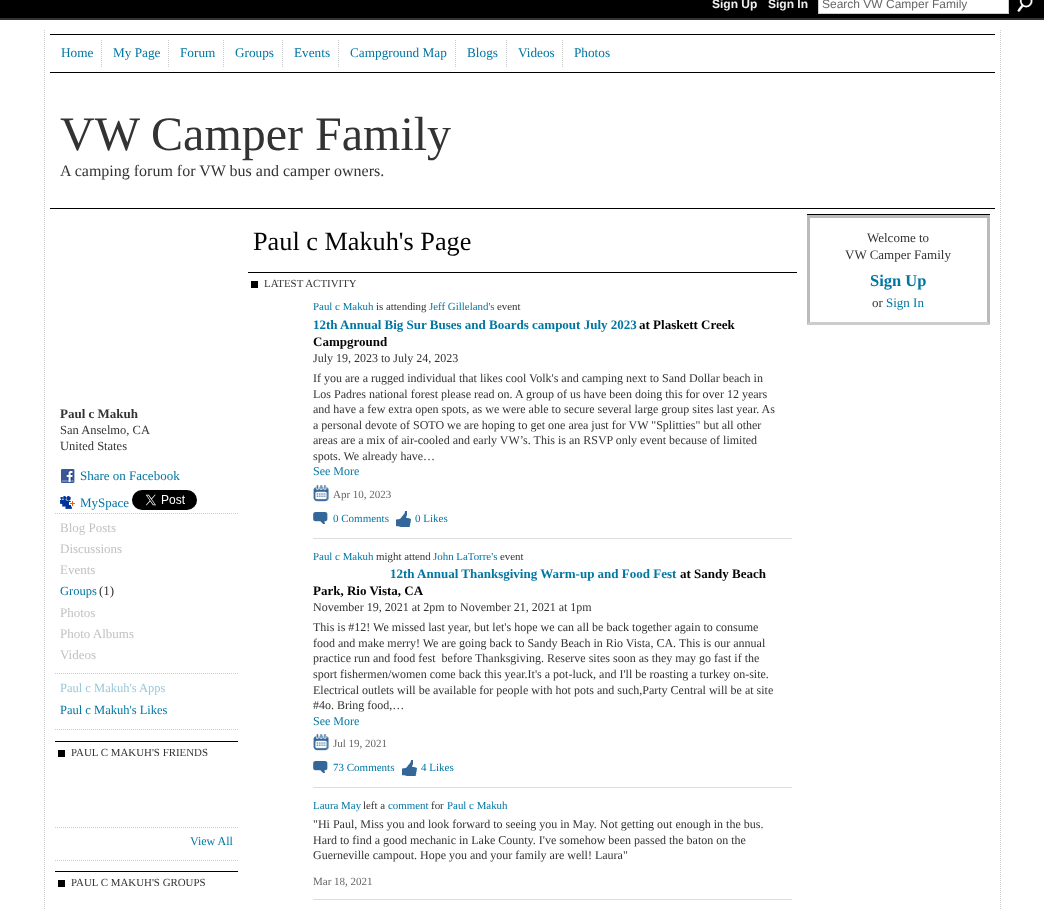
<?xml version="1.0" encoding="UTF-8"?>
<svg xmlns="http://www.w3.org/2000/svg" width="1044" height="909">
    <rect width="100%" height="100%" fill="#FFFFFF"/>
    <rect x="0" y="0" width="1044" height="18" fill="#000000"/>
    <rect x="0" y="18" width="1044" height="2" fill="#333333"/>
    <text x="712" y="8" font-family="Liberation Sans" font-size="12" font-weight="700" fill="#EEEEEE">Sign Up</text>
    <text x="768" y="8" font-family="Liberation Sans" font-size="12" font-weight="700" fill="#EEEEEE">Sign In</text>
    <rect x="819" y="0" width="189" height="13" fill="#FFFFFF"/>
    <rect x="1008" y="0" width="1" height="14" fill="#CCCCCC"/>
    <rect x="818" y="13" width="191" height="1" fill="#CCCCCC"/>
    <rect x="818" y="0" width="1" height="14" fill="#CCCCCC"/>
    <text x="822" y="8" font-family="Liberation Sans" font-size="12" fill="#666666">Search VW Camper Family</text>
    <image x="1017" y="0" width="16" height="12" href="img_01.png"/>
    <path d="M 1000.5 30 V 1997" fill="none" stroke="#CCCCCC" stroke-dasharray="1 1"/>
    <path d="M 44.5 30 V 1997" fill="none" stroke="#CCCCCC" stroke-dasharray="1 1"/>
    <rect x="50" y="34" width="945" height="1" fill="#000000"/>
    <rect x="50" y="72" width="945" height="1" fill="#000000"/>
    <path d="M 101.5 40 V 67" fill="none" stroke="#CCCCCC" stroke-dasharray="1 1"/>
    <text x="61" y="57" font-family="Liberation Serif" font-size="13.25" fill="#0076A3">Home</text>
    <path d="M 168.5 40 V 67" fill="none" stroke="#CCCCCC" stroke-dasharray="1 1"/>
    <text x="113" y="57" font-family="Liberation Serif" font-size="13.25" fill="#0076A3">My Page</text>
    <path d="M 223.5 40 V 67" fill="none" stroke="#CCCCCC" stroke-dasharray="1 1"/>
    <text x="180" y="57" font-family="Liberation Serif" font-size="13.25" fill="#0076A3">Forum</text>
    <path d="M 282.5 40 V 67" fill="none" stroke="#CCCCCC" stroke-dasharray="1 1"/>
    <text x="235" y="57" font-family="Liberation Serif" font-size="13.25" fill="#0076A3">Groups</text>
    <path d="M 338.5 40 V 67" fill="none" stroke="#CCCCCC" stroke-dasharray="1 1"/>
    <text x="294" y="57" font-family="Liberation Serif" font-size="13.25" fill="#0076A3">Events</text>
    <path d="M 455.5 40 V 67" fill="none" stroke="#CCCCCC" stroke-dasharray="1 1"/>
    <text x="350" y="57" font-family="Liberation Serif" font-size="13.25" fill="#0076A3">Campground Map</text>
    <path d="M 506.5 40 V 67" fill="none" stroke="#CCCCCC" stroke-dasharray="1 1"/>
    <text x="467" y="57" font-family="Liberation Serif" font-size="13.25" fill="#0076A3">Blogs</text>
    <path d="M 562.5 40 V 67" fill="none" stroke="#CCCCCC" stroke-dasharray="1 1"/>
    <text x="518" y="57" font-family="Liberation Serif" font-size="13.25" fill="#0076A3">Videos</text>
    <text x="574" y="57" font-family="Liberation Serif" font-size="13.25" fill="#0076A3">Photos</text>
    <text x="60" y="150" font-family="Liberation Serif" font-size="48" fill="#333333">VW Camper Family</text>
    <text x="60" y="176" font-family="Liberation Serif" font-size="16" fill="#333333">A camping forum for VW bus and camper owners.</text>
    <rect x="50" y="208" width="945" height="1" fill="#000000"/>
    <path d="M 55 513.5 H 238" fill="none" stroke="#CCCCCC" stroke-dasharray="1 1"/>
    <text x="60" y="418" font-family="Liberation Serif" font-size="13" font-weight="700" fill="#333333">Paul c Makuh</text>
    <text font-family="Liberation Serif" font-size="12.5" fill="#333333">
        <tspan x="60" y="434">San Anselmo, CA</tspan>
        <tspan x="60" y="450">United States</tspan>
    </text>
    <image x="61" y="469" width="14" height="14" href="img_02.png"/>
    <text x="80" y="480" font-family="Liberation Serif" font-size="13" fill="#0076A3">Share on Facebook</text>
    <image x="60" y="496" width="15" height="13" href="img_03.png"/>
    <text x="80" y="507" font-family="Liberation Serif" font-size="13" fill="#0076A3">MySpace</text>
    <image x="132" y="490" width="65" height="20" href="img_04.png"/>
    <path d="M 55 673.5 H 238" fill="none" stroke="#CCCCCC" stroke-dasharray="1 1"/>
    <text font-family="Liberation Serif" font-size="13" fill="#C2C2C2">
        <tspan x="60" y="532">Blog Posts</tspan>
        <tspan x="60" y="553">Discussions</tspan>
        <tspan x="60" y="574">Events</tspan>
    </text>
    <text x="60" y="595" font-family="Liberation Serif" font-size="12.5" fill="#0076A3">Groups</text>
    <text x="99" y="595" font-family="Liberation Serif" font-size="13" fill="#333333">(1)</text>
    <text font-family="Liberation Serif" font-size="13" fill="#C2C2C2">
        <tspan x="60" y="617">Photos</tspan>
        <tspan x="60" y="638">Photo Albums</tspan>
        <tspan x="60" y="659">Videos</tspan>
    </text>
    <path d="M 55 729.5 H 238" fill="none" stroke="#CCCCCC" stroke-dasharray="1 1"/>
    <text x="60" y="692" font-family="Liberation Serif" font-size="12.5" fill="#99C8DA">Paul c Makuh's Apps</text>
    <text x="60" y="714" font-family="Liberation Serif" font-size="12.5" fill="#0076A3">Paul c Makuh's Likes</text>
    <rect x="55" y="741" width="183" height="1" fill="#000000"/>
    <rect x="58" y="750" width="7" height="7" fill="#000000"/>
    <text x="71" y="756" font-family="Liberation Serif" font-size="10.9" fill="#333333">PAUL C MAKUH'S FRIENDS</text>
    <path d="M 55 827.5 H 238" fill="none" stroke="#CCCCCC" stroke-dasharray="1 1"/>
    <path d="M 55 860.5 H 238" fill="none" stroke="#CCCCCC" stroke-dasharray="1 1"/>
    <text x="190" y="845" font-family="Liberation Serif" font-size="12" fill="#0076A3">View All</text>
    <rect x="55" y="871" width="183" height="1" fill="#000000"/>
    <rect x="58" y="880" width="7" height="7" fill="#000000"/>
    <text x="71" y="886" font-family="Liberation Serif" font-size="10.9" fill="#333333">PAUL C MAKUH'S GROUPS</text>
    <text x="253" y="250" font-family="Liberation Serif" font-size="26.25" fill="#040404">Paul c Makuh's Page</text>
    <rect x="248" y="272" width="549" height="1" fill="#000000"/>
    <rect x="251" y="281" width="7" height="7" fill="#000000"/>
    <text x="264" y="287" font-family="Liberation Serif" font-size="10.9" fill="#333333">LATEST ACTIVITY</text>
    <rect x="313" y="538" width="479" height="1" fill="#DDDDDD"/>
    <text x="313" y="310" font-family="Liberation Serif" font-size="10.9" fill="#0076A3">Paul c Makuh</text>
    <text x="376" y="310" font-family="Liberation Serif" font-size="10.9" fill="#333333">is attending</text>
    <text x="429" y="310" font-family="Liberation Serif" font-size="10.9" fill="#0076A3">Jeff Gilleland's</text>
    <text x="497" y="310" font-family="Liberation Serif" font-size="10.9" fill="#333333">event</text>
    <text x="313" y="329" font-family="Liberation Serif" font-size="13" font-weight="700" fill="#0076A3">12th Annual Big Sur Buses and Boards campout July 2023</text>
    <text x="639" y="329" font-family="Liberation Serif" font-size="13" font-weight="700" fill="#040404">at Plaskett Creek</text>
    <text x="313" y="346" font-family="Liberation Serif" font-size="13" font-weight="700" fill="#040404">Campground</text>
    <text font-family="Liberation Serif" font-size="12" fill="#333333">
        <tspan x="313" y="362">July 19, 2023 to July 24, 2023</tspan>
        <tspan x="313" y="382">If you are a rugged individual that likes cool Volk's and camping next to Sand Dollar beach in</tspan>
        <tspan x="313" y="398">Los Padres national forest please read on. A group of us have been doing this for over 12 years</tspan>
        <tspan x="313" y="413">and have a few extra open spots, as we were able to secure several large group sites last year. As</tspan>
        <tspan x="313" y="429">a personal devote of SOTO we are hoping to get one area just for VW "Splitties" but all other</tspan>
        <tspan x="313" y="444">areas are a mix of air-cooled and early VW’s. This is an RSVP only event because of limited</tspan>
        <tspan x="313" y="460">spots. We already have…</tspan>
    </text>
    <text x="313" y="475" font-family="Liberation Serif" font-size="12" fill="#0076A3">See More</text>
    <image x="313" y="485" width="17" height="17" href="img_05.png"/>
    <text x="333" y="498" font-family="Liberation Serif" font-size="11" fill="#666666">Apr 10, 2023</text>
    <image x="313" y="512" width="15" height="12" href="img_06.png"/>
    <text x="333" y="522" font-family="Liberation Serif" font-size="11" fill="#0076A3">0 Comments</text>
    <image x="396" y="511" width="15" height="16" href="img_07.png"/>
    <text x="415" y="522" font-family="Liberation Serif" font-size="11" fill="#0076A3">0 Likes</text>
    <rect x="313" y="787" width="479" height="1" fill="#DDDDDD"/>
    <text x="313" y="560" font-family="Liberation Serif" font-size="10.9" fill="#0076A3">Paul c Makuh</text>
    <text x="376" y="560" font-family="Liberation Serif" font-size="10.9" fill="#333333">might attend</text>
    <text x="433" y="560" font-family="Liberation Serif" font-size="10.9" fill="#0076A3">John LaTorre's</text>
    <text x="500" y="560" font-family="Liberation Serif" font-size="10.9" fill="#333333">event</text>
    <text x="390" y="578" font-family="Liberation Serif" font-size="13" font-weight="700" fill="#0076A3">12th Annual Thanksgiving Warm-up and Food Fest</text>
    <text x="680" y="578" font-family="Liberation Serif" font-size="13" font-weight="700" fill="#040404">at Sandy Beach</text>
    <text x="313" y="595" font-family="Liberation Serif" font-size="13" font-weight="700" fill="#040404">Park, Rio Vista, CA</text>
    <text font-family="Liberation Serif" font-size="12" fill="#333333" xml:space="preserve"><tspan x="313" y="611">November 19, 2021 at 2pm to November 21, 2021 at 1pm</tspan><tspan x="313" y="631">This is #12! We missed last year, but let's hope we can all be back together again to consume</tspan><tspan x="313" y="647">food and make merry! We are going back to Sandy Beach in Rio Vista, CA. This is our annual</tspan><tspan x="313" y="662">practice run and food fest  before Thanksgiving. Reserve sites soon as they may go fast if the</tspan><tspan x="313" y="678">sport fishermen/women come back this year.It's a pot-luck, and I'll be roasting a turkey on-site.</tspan><tspan x="313" y="694">Electrical outlets will be available for people with hot pots and such,Party Central will be at site</tspan><tspan x="313" y="709">#4o. Bring food,…</tspan></text>
    <text x="313" y="725" font-family="Liberation Serif" font-size="12" fill="#0076A3">See More</text>
    <image x="313" y="734" width="17" height="17" href="img_05.png"/>
    <text x="333" y="747" font-family="Liberation Serif" font-size="11" fill="#666666">Jul 19, 2021</text>
    <image x="313" y="761" width="15" height="12" href="img_06.png"/>
    <text x="333" y="771" font-family="Liberation Serif" font-size="11" fill="#0076A3">73 Comments</text>
    <image x="402" y="760" width="15" height="16" href="img_07.png"/>
    <text x="421" y="771" font-family="Liberation Serif" font-size="11" fill="#0076A3">4 Likes</text>
    <rect x="313" y="899" width="479" height="1" fill="#DDDDDD"/>
    <text x="313" y="809" font-family="Liberation Serif" font-size="10.9" fill="#0076A3">Laura May</text>
    <text x="363" y="809" font-family="Liberation Serif" font-size="10.9" fill="#333333">left a</text>
    <text x="388" y="809" font-family="Liberation Serif" font-size="10.9" fill="#0076A3">comment</text>
    <text x="431" y="809" font-family="Liberation Serif" font-size="10.9" fill="#333333">for</text>
    <text x="447" y="809" font-family="Liberation Serif" font-size="10.9" fill="#0076A3">Paul c Makuh</text>
    <text font-family="Liberation Serif" font-size="12" fill="#333333">
        <tspan x="313" y="828">"Hi Paul, Miss you and look forward to seeing you in May. Not getting out enough in the bus.</tspan>
        <tspan x="313" y="844">Hard to find a good mechanic in Lake County. I've somehow been passed the baton on the</tspan>
        <tspan x="313" y="859">Guerneville campout. Hope you and your family are well! Laura"</tspan>
    </text>
    <text x="313" y="885" font-family="Liberation Serif" font-size="11" fill="#666666">Mar 18, 2021</text>
    <rect x="807" y="214" width="183" height="1" fill="#000000"/>
    <rect x="807" y="215" width="183" height="3" fill="#BBBBBB"/>
    <path d="M 990 215 V 325 L 987 322 V 218 Z" fill="#BBBBBB"/>
    <path d="M 990 325 H 807 L 810 322 H 987 Z" fill="#CCCCCC"/>
    <path d="M 807 325 V 215 L 810 218 V 322 Z" fill="#BBBBBB"/>
    <text x="867" y="242" font-family="Liberation Serif" font-size="13" fill="#333333">Welcome to</text>
    <text x="845" y="259" font-family="Liberation Serif" font-size="13" fill="#333333">VW Camper Family</text>
    <text x="870" y="286" font-family="Liberation Serif" font-size="16.5" font-weight="700" fill="#0076A3">Sign Up</text>
    <text x="872" y="307" font-family="Liberation Serif" font-size="13" fill="#333333">or</text>
    <text x="886" y="307" font-family="Liberation Serif" font-size="13" fill="#0076A3">Sign In</text>
</svg>
